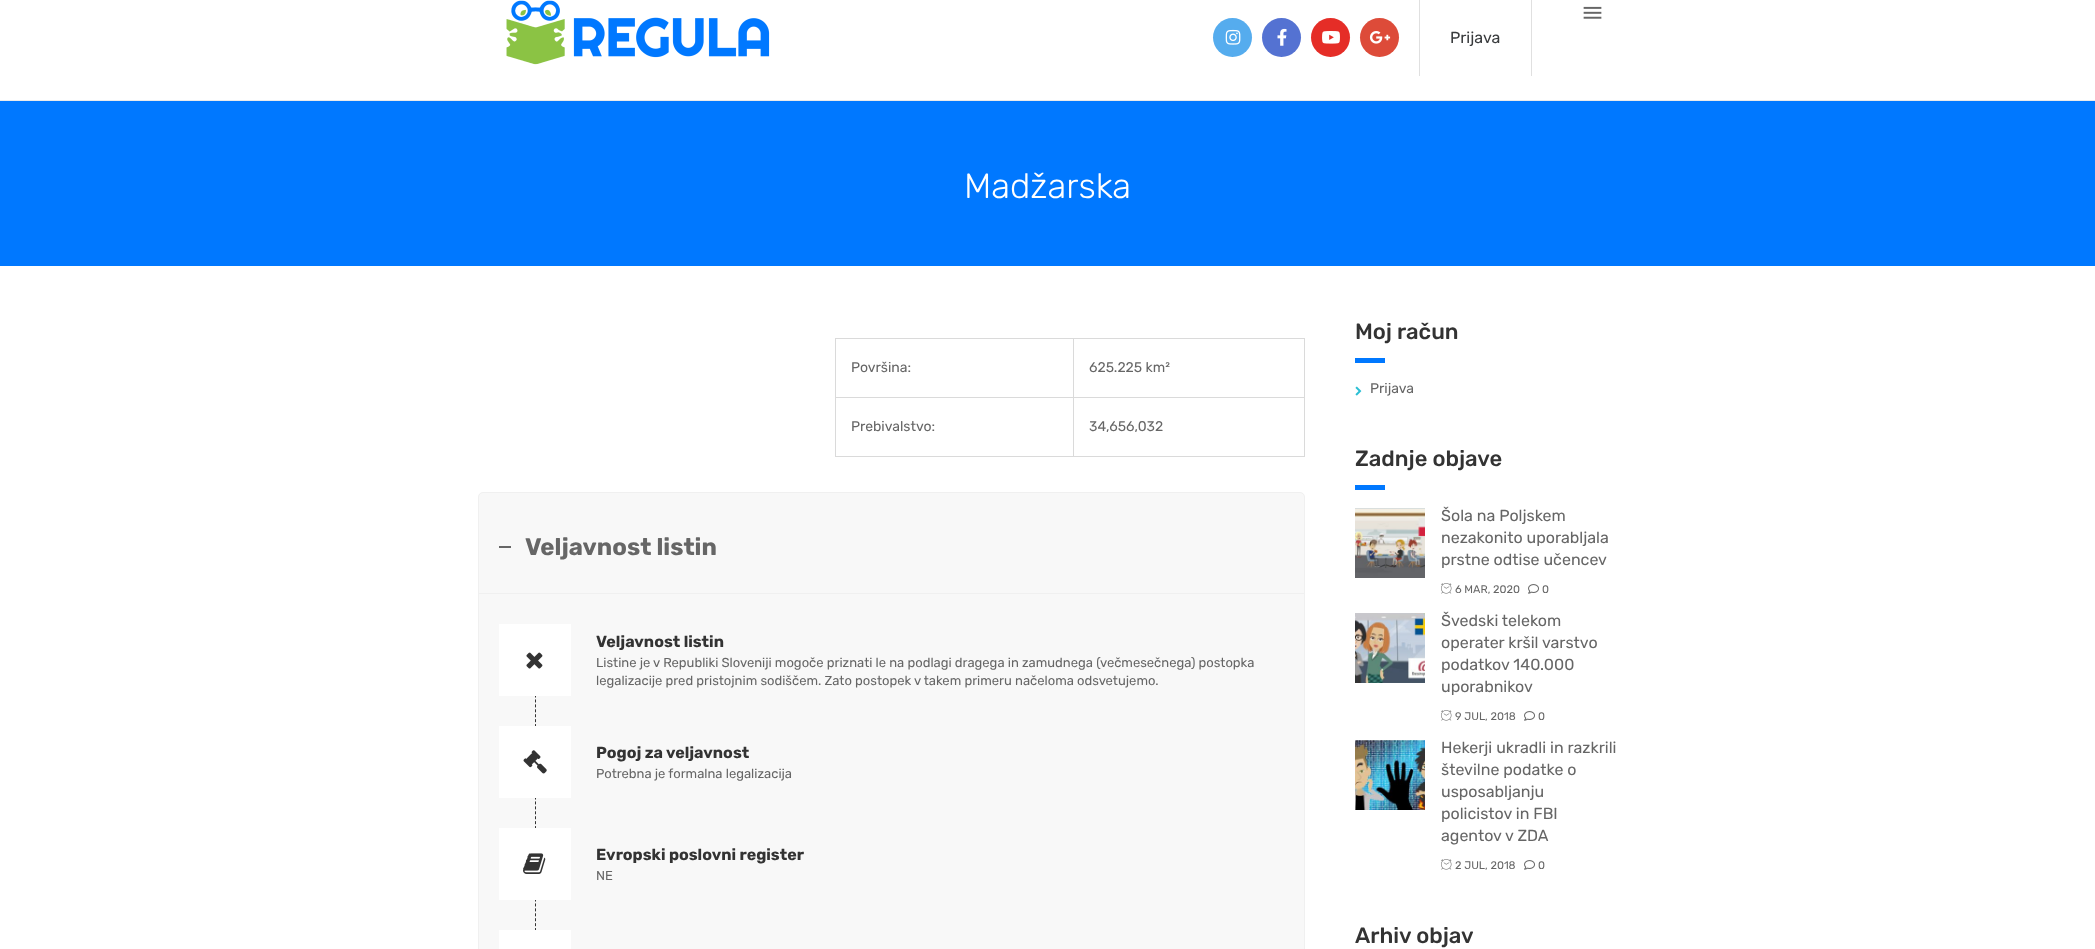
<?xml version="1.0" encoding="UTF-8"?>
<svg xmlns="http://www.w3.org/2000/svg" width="2095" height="949">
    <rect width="100%" height="100%" fill="#FFFFFF"/>
    <rect x="0" y="100" width="2095" height="1" fill="#EBEBEB"/>
    <image x="506" y="0" width="264" height="65" href="img_01.png"/>
    <image x="1583" y="6" width="19" height="13" href="img_02.png"/>
    <circle cx="1232.5" cy="37.5" r="19.5" fill="#55ACEE"/>
    <image x="1225" y="29" width="16" height="16" href="img_03.png"/>
    <circle cx="1281.5" cy="37.5" r="19.5" fill="#5472D2"/>
    <image x="1277" y="28" width="10" height="18" href="img_04.png"/>
    <circle cx="1330.5" cy="37.5" r="19.5" fill="#E52D27"/>
    <image x="1322" y="31" width="18" height="13" href="img_05.png"/>
    <circle cx="1379.5" cy="37.5" r="19.5" fill="#DD4B39"/>
    <image x="1369" y="31" width="22" height="13" href="img_06.png"/>
    <rect x="1531" y="0" width="1" height="76" fill="#E0E0E0"/>
    <rect x="1419" y="0" width="1" height="76" fill="#E0E0E0"/>
    <text x="1450" y="43" font-family="Rubik" font-size="16" fill="#393B3D">Prijava</text>
    <rect x="0" y="101" width="2095" height="165" fill="#0078FF"/>
    <text x="964" y="198" font-family="Rubik" font-size="35" font-weight="300" fill="#FFFFFF">Madžarska</text>
    <rect x="835" y="338" width="470" height="1" fill="#DADADA"/>
    <rect x="1304" y="338" width="1" height="119" fill="#DADADA"/>
    <rect x="835" y="456" width="470" height="1" fill="#DADADA"/>
    <rect x="835" y="338" width="1" height="119" fill="#DADADA"/>
    <text x="851" y="372" font-family="Rubik" font-size="14" fill="#666666">Površina:</text>
    <rect x="1073" y="397" width="232" height="1" fill="#DADADA"/>
    <rect x="1073" y="397" width="1" height="60" fill="#DADADA"/>
    <rect x="835" y="397" width="239" height="1" fill="#DADADA"/>
    <rect x="1073" y="338" width="1" height="60" fill="#DADADA"/>
    <text x="1089" y="372" font-family="Rubik" font-size="14" fill="#666666">625.225 km²</text>
    <text x="851" y="431" font-family="Rubik" font-size="14" fill="#666666">Prebivalstvo:</text>
    <text x="1089" y="431" font-family="Rubik" font-size="14" fill="#666666">34,656,032</text>
    <path d="M 483 492.5 H 1300 C 1302.5 492.5 1304.5 494.5 1304.5 497 V 593.5 H 478.5 V 497 C 478.5 494.5 480.5 492.5 483 492.5 Z" fill="#F8F8F8" stroke="#F0F0F0"/>
    <rect x="499" y="546" width="12" height="2" fill="#666666"/>
    <text x="525" y="555" font-family="Rubik" font-size="24" font-weight="700" fill="#666666">Veljavnost listin</text>
    <rect x="478.5" y="593.5" width="826" height="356" fill="#F8F8F8" stroke="#F0F0F0"/>
    <path d="M 535.5 660 V 732" fill="none" stroke="#333333" stroke-dasharray="3 1.93"/>
    <rect x="499" y="624" width="72" height="72" fill="#FFFFFF"/>
    <image x="526" y="652" width="17" height="17" href="img_07.png"/>
    <text x="596" y="647" font-family="Rubik" font-size="16" font-weight="700" fill="#333333">Veljavnost listin</text>
    <text font-family="Rubik" font-size="13" fill="#666666">
        <tspan x="596" y="667">Listine je v Republiki Sloveniji mogoče priznati le na podlagi dragega in zamudnega (večmesečnega) postopka</tspan>
        <tspan x="596" y="685">legalizacije pred pristojnim sodiščem. Zato postopek v takem primeru načeloma odsvetujemo.</tspan>
    </text>
    <path d="M 535.5 762 V 834" fill="none" stroke="#333333" stroke-dasharray="3 1.93"/>
    <rect x="499" y="726" width="72" height="72" fill="#FFFFFF"/>
    <image x="523" y="750" width="24" height="24" href="img_08.png"/>
    <text x="596" y="758" font-family="Rubik" font-size="16" font-weight="700" fill="#333333">Pogoj za veljavnost</text>
    <text x="596" y="778" font-family="Rubik" font-size="13" fill="#666666">Potrebna je formalna legalizacija</text>
    <path d="M 535.5 864 V 936" fill="none" stroke="#333333" stroke-dasharray="3 1.93"/>
    <rect x="499" y="828" width="72" height="72" fill="#FFFFFF"/>
    <image x="523" y="853" width="23" height="21" href="img_09.png"/>
    <text x="596" y="860" font-family="Rubik" font-size="16" font-weight="700" fill="#333333">Evropski poslovni register</text>
    <text x="596" y="880" font-family="Rubik" font-size="13" fill="#666666">NE</text>
    <rect x="499" y="930" width="72" height="19" fill="#FFFFFF"/>
    <text x="1355" y="339" font-family="Rubik" font-size="22" font-weight="500" fill="#333333">Moj račun</text>
    <rect x="1355" y="358" width="30" height="5" fill="#0078FF"/>
    <image x="1355" y="386" width="7" height="10" href="img_10.png"/>
    <text x="1370" y="393" font-family="Rubik" font-size="14" fill="#666666">Prijava</text>
    <text x="1355" y="466" font-family="Rubik" font-size="22" font-weight="500" fill="#333333">Zadnje objave</text>
    <rect x="1355" y="485" width="30" height="5" fill="#0078FF"/>
    <image x="1355" y="508" width="70" height="70" href="img_11.png"/>
    <text font-family="Rubik" font-size="16" fill="#666666">
        <tspan x="1441" y="521">Šola na Poljskem</tspan>
        <tspan x="1441" y="543">nezakonito uporabljala</tspan>
        <tspan x="1441" y="565">prstne odtise učencev</tspan>
    </text>
    <image x="1441" y="583" width="11" height="11" href="img_12.png"/>
    <text x="1455" y="593" font-family="Rubik" font-size="11" fill="#666666">6 MAR, 2020</text>
    <image x="1528" y="584" width="11" height="10" href="img_13.png"/>
    <text x="1542" y="593" font-family="Rubik" font-size="11" fill="#666666">0</text>
    <image x="1355" y="613" width="70" height="70" href="img_14.png"/>
    <text font-family="Rubik" font-size="16" fill="#666666">
        <tspan x="1441" y="626">Švedski telekom</tspan>
        <tspan x="1441" y="648">operater kršil varstvo</tspan>
        <tspan x="1441" y="670">podatkov 140.000</tspan>
        <tspan x="1441" y="692">uporabnikov</tspan>
    </text>
    <image x="1441" y="710" width="11" height="11" href="img_12.png"/>
    <text x="1455" y="720" font-family="Rubik" font-size="11" fill="#666666">9 JUL, 2018</text>
    <image x="1524" y="711" width="11" height="10" href="img_13.png"/>
    <text x="1538" y="720" font-family="Rubik" font-size="11" fill="#666666">0</text>
    <image x="1355" y="740" width="70" height="70" href="img_15.png"/>
    <text font-family="Rubik" font-size="16" fill="#666666">
        <tspan x="1441" y="753">Hekerji ukradli in razkrili</tspan>
        <tspan x="1441" y="775">številne podatke o</tspan>
        <tspan x="1441" y="797">usposabljanju</tspan>
        <tspan x="1441" y="819">policistov in FBI</tspan>
        <tspan x="1441" y="841">agentov v ZDA</tspan>
    </text>
    <image x="1441" y="859" width="11" height="11" href="img_12.png"/>
    <text x="1455" y="869" font-family="Rubik" font-size="11" fill="#666666">2 JUL, 2018</text>
    <image x="1524" y="860" width="11" height="10" href="img_13.png"/>
    <text x="1538" y="869" font-family="Rubik" font-size="11" fill="#666666">0</text>
    <text x="1355" y="943" font-family="Rubik" font-size="22" font-weight="500" fill="#333333">Arhiv objav</text>
</svg>
